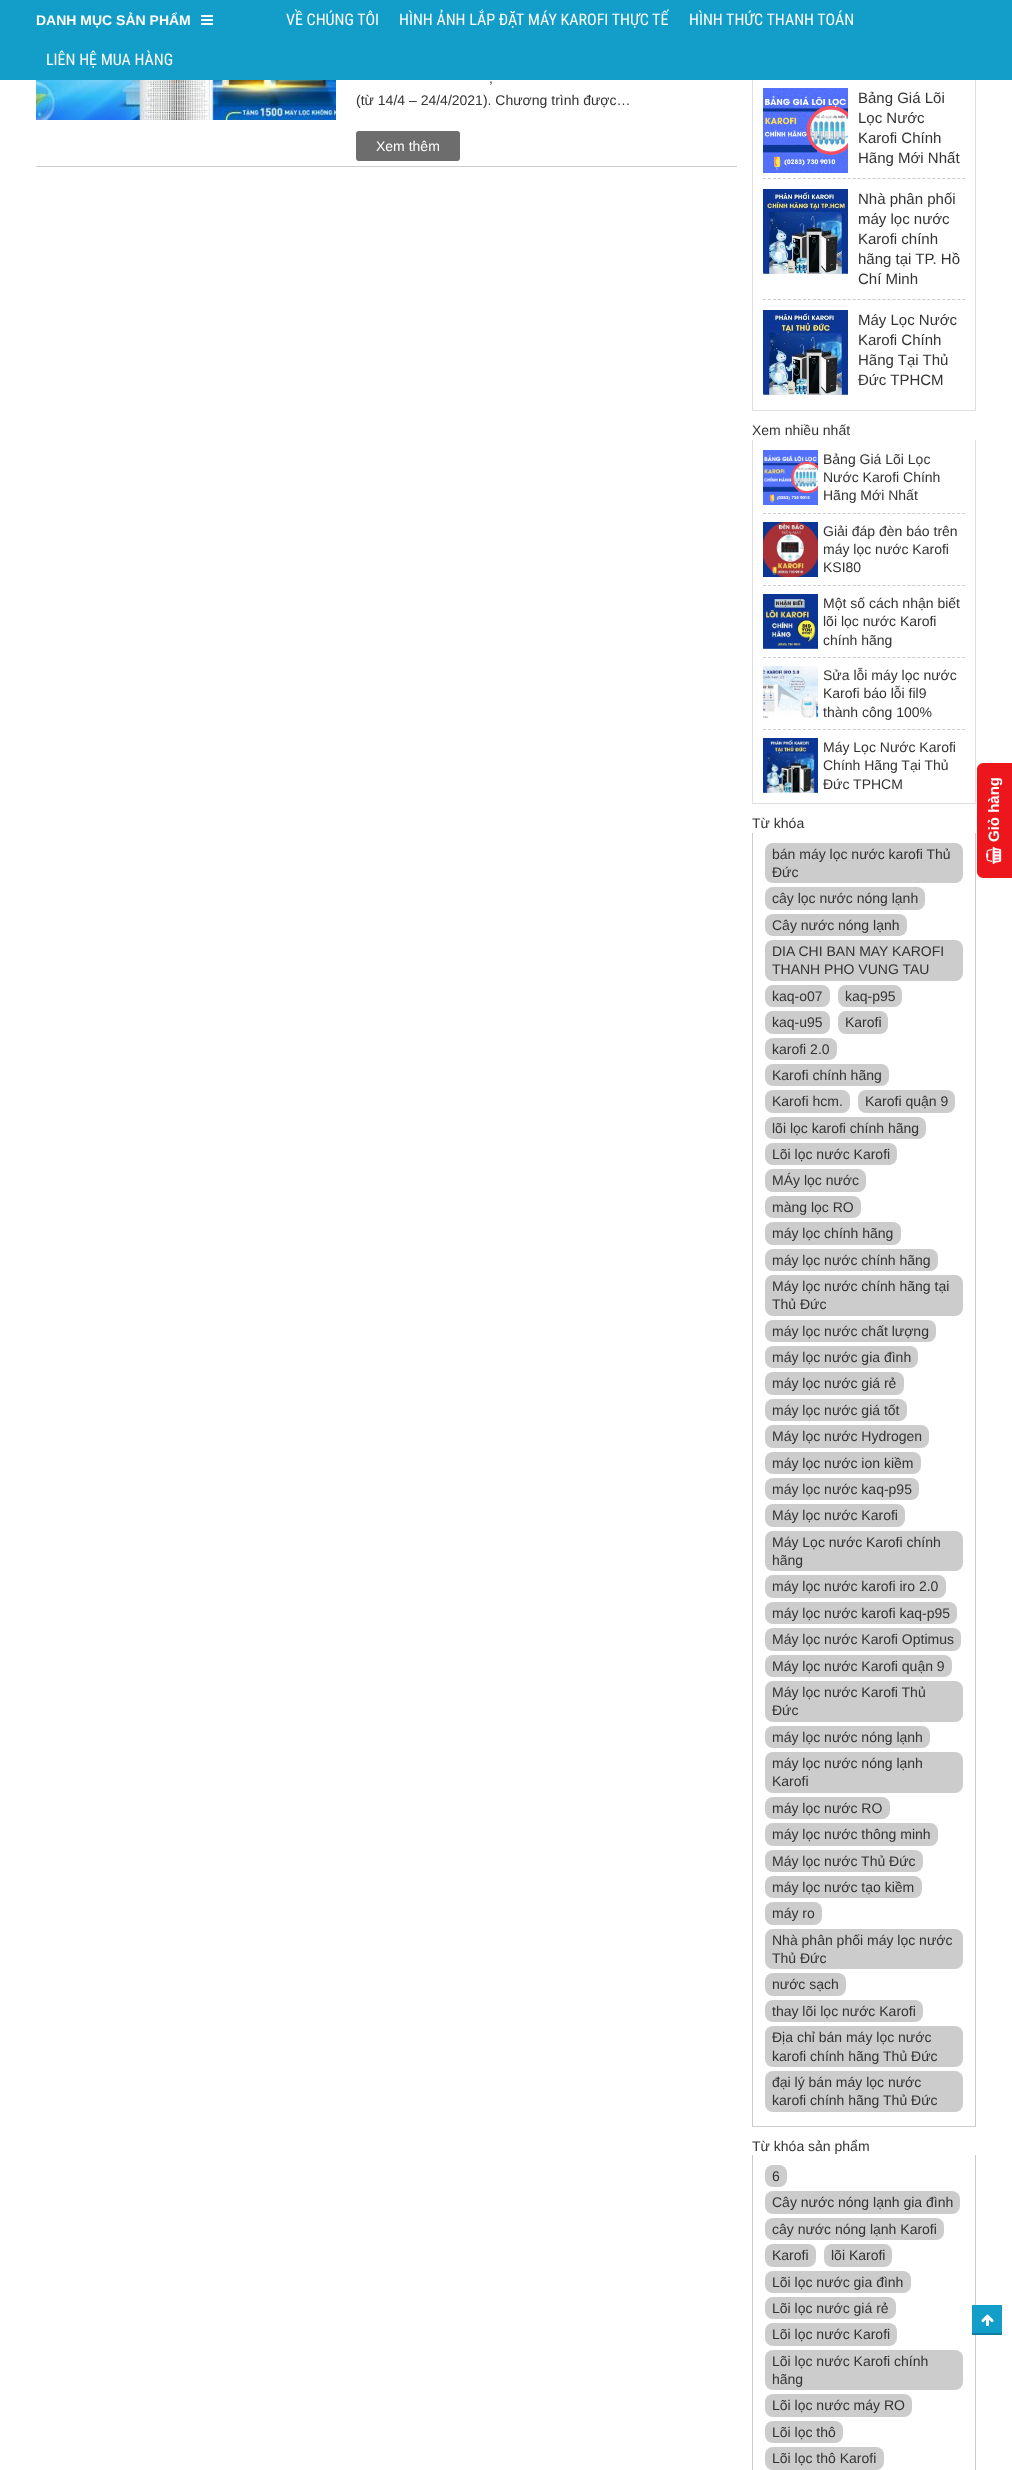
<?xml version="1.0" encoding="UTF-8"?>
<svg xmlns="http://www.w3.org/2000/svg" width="1012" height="2470">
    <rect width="100%" height="100%" fill="#FFFFFF"/>
    <rect x="975" y="78" width="1" height="333" fill="#DFDFDF"/>
    <rect x="752" y="410" width="224" height="1" fill="#DFDFDF"/>
    <rect x="752" y="78" width="1" height="333" fill="#DFDFDF"/>
    <rect x="0" y="0" width="1012" height="80" fill="#129EC9"/>
    <text x="286" y="25" font-family="Roboto Condensed" font-size="16" fill="#FFFFFF">VỀ CHÚNG TÔI</text>
    <text x="399" y="25" font-family="Roboto Condensed" font-size="16" fill="#FFFFFF">HÌNH ẢNH LẮP ĐẶT MÁY KAROFI THỰC TẾ</text>
    <text x="689" y="25" font-family="Roboto Condensed" font-size="16" fill="#FFFFFF">HÌNH THỨC THANH TOÁN</text>
    <text x="46" y="65" font-family="Roboto Condensed" font-size="16" fill="#FFFFFF">LIÊN HỆ MUA HÀNG</text>
    <text x="36" y="25" font-family="Liberation Sans" font-size="14" font-weight="700" fill="#FFFFFF">DANH MỤC SẢN PHẨM</text>
    <image x="201" y="15" width="12" height="10" href="img_01.png"/>
    <rect x="36" y="166" width="701" height="1" fill="#CCCCCC"/>
    <image x="36" y="80" width="300" height="40" href="img_02.png"/>
    <text x="489" y="83" font-family="Liberation Sans" font-size="14" fill="#333333">,</text>
    <text x="356" y="105" font-family="Liberation Sans" font-size="14" fill="#333333">(từ 14/4 – 24/4/2021). Chương trình được…</text>
    <rect x="356" y="131" width="104" height="30" rx="3" fill="#6D6D6D"/>
    <text x="376" y="151" font-family="Liberation Sans" font-size="14" fill="#FFFFFF">Xem thêm</text>
    <path d="M 763 178.5 H 965" fill="none" stroke="#CCCCCC" stroke-dasharray="3 1.98"/>
    <image x="763" y="88" width="85" height="85" href="img_03.png"/>
    <text font-family="Liberation Sans" font-size="15" fill="#333333">
        <tspan x="858" y="103">Bảng Giá Lõi</tspan>
        <tspan x="858" y="123">Lọc Nước</tspan>
        <tspan x="858" y="143">Karofi Chính</tspan>
        <tspan x="858" y="163">Hãng Mới Nhất</tspan>
    </text>
    <path d="M 763 299.5 H 965" fill="none" stroke="#CCCCCC" stroke-dasharray="3 1.98"/>
    <image x="763" y="189" width="85" height="85" href="img_04.png"/>
    <text font-family="Liberation Sans" font-size="15" fill="#333333">
        <tspan x="858" y="204">Nhà phân phối</tspan>
        <tspan x="858" y="224">máy lọc nước</tspan>
        <tspan x="858" y="244">Karofi chính</tspan>
        <tspan x="858" y="264">hãng tại TP. Hồ</tspan>
        <tspan x="858" y="284">Chí Minh</tspan>
    </text>
    <image x="763" y="310" width="85" height="85" href="img_05.png"/>
    <text font-family="Liberation Sans" font-size="15" fill="#333333">
        <tspan x="858" y="325">Máy Lọc Nước</tspan>
        <tspan x="858" y="345">Karofi Chính</tspan>
        <tspan x="858" y="365">Hãng Tại Thủ</tspan>
        <tspan x="858" y="385">Đức TPHCM</tspan>
    </text>
    <text x="752" y="435" font-family="Liberation Sans" font-size="14" fill="#333333">Xem nhiều nhất</text>
    <rect x="975" y="440" width="1" height="364" fill="#DFDFDF"/>
    <rect x="752" y="803" width="224" height="1" fill="#DFDFDF"/>
    <rect x="752" y="440" width="1" height="364" fill="#DFDFDF"/>
    <path d="M 763 513.5 H 965" fill="none" stroke="#CCCCCC" stroke-dasharray="3 1.98"/>
    <image x="763" y="450" width="55" height="55" href="img_06.png"/>
    <text font-family="Liberation Sans" font-size="14" fill="#333333">
        <tspan x="823" y="464">Bảng Giá Lõi Lọc</tspan>
        <tspan x="823" y="482">Nước Karofi Chính</tspan>
        <tspan x="823" y="500">Hãng Mới Nhất</tspan>
    </text>
    <path d="M 763 585.5 H 965" fill="none" stroke="#CCCCCC" stroke-dasharray="3 1.98"/>
    <image x="763" y="522" width="55" height="55" href="img_07.png"/>
    <text font-family="Liberation Sans" font-size="14" fill="#333333">
        <tspan x="823" y="536">Giải đáp đèn báo trên</tspan>
        <tspan x="823" y="554">máy lọc nước Karofi</tspan>
        <tspan x="823" y="572">KSI80</tspan>
    </text>
    <path d="M 763 657.5 H 965" fill="none" stroke="#CCCCCC" stroke-dasharray="3 1.98"/>
    <image x="763" y="594" width="55" height="55" href="img_08.png"/>
    <text font-family="Liberation Sans" font-size="14" fill="#333333">
        <tspan x="823" y="608">Một số cách nhận biết</tspan>
        <tspan x="823" y="626">lõi lọc nước Karofi</tspan>
        <tspan x="823" y="645">chính hãng</tspan>
    </text>
    <path d="M 763 729.5 H 965" fill="none" stroke="#CCCCCC" stroke-dasharray="3 1.98"/>
    <image x="763" y="666" width="55" height="53" href="img_09.png"/>
    <text font-family="Liberation Sans" font-size="14" fill="#333333">
        <tspan x="823" y="680">Sửa lỗi máy lọc nước</tspan>
        <tspan x="823" y="698">Karofi báo lỗi fil9</tspan>
        <tspan x="823" y="717">thành công 100%</tspan>
    </text>
    <image x="763" y="738" width="55" height="55" href="img_10.png"/>
    <text font-family="Liberation Sans" font-size="14" fill="#333333">
        <tspan x="823" y="752">Máy Lọc Nước Karofi</tspan>
        <tspan x="823" y="770">Chính Hãng Tại Thủ</tspan>
        <tspan x="823" y="789">Đức TPHCM</tspan>
    </text>
    <text x="752" y="828" font-family="Liberation Sans" font-size="14" fill="#333333">Từ khóa</text>
    <rect x="975" y="833" width="1" height="1294" fill="#CCCCCC"/>
    <rect x="752" y="2126" width="224" height="1" fill="#CCCCCC"/>
    <rect x="752" y="833" width="1" height="1294" fill="#CCCCCC"/>
    <rect x="765" y="843" width="198" height="40" rx="8" fill="#CCCCCC"/>
    <text font-family="Liberation Sans" font-size="14" fill="#333333">
        <tspan x="772" y="859">bán máy lọc nước karofi Thủ</tspan>
        <tspan x="772" y="877">Đức</tspan>
    </text>
    <rect x="765" y="887" width="160" height="23" rx="8" fill="#CCCCCC"/>
    <text x="772" y="903" font-family="Liberation Sans" font-size="14" fill="#333333">cây lọc nước nóng lạnh</text>
    <rect x="765" y="914" width="142" height="22" rx="8" fill="#CCCCCC"/>
    <text x="772" y="930" font-family="Liberation Sans" font-size="14" fill="#333333">Cây nước nóng lạnh</text>
    <rect x="765" y="940" width="198" height="41" rx="8" fill="#CCCCCC"/>
    <text font-family="Liberation Sans" font-size="14" fill="#333333">
        <tspan x="772" y="956">DIA CHI BAN MAY KAROFI</tspan>
        <tspan x="772" y="974">THANH PHO VUNG TAU</tspan>
    </text>
    <rect x="765" y="985" width="65" height="22" rx="8" fill="#CCCCCC"/>
    <text x="772" y="1001" font-family="Liberation Sans" font-size="14" fill="#333333">kaq-o07</text>
    <rect x="838" y="985" width="64" height="22" rx="8" fill="#CCCCCC"/>
    <text x="845" y="1001" font-family="Liberation Sans" font-size="14" fill="#333333">kaq-p95</text>
    <rect x="765" y="1011" width="65" height="23" rx="8" fill="#CCCCCC"/>
    <text x="772" y="1027" font-family="Liberation Sans" font-size="14" fill="#333333">kaq-u95</text>
    <rect x="838" y="1011" width="50" height="23" rx="8" fill="#CCCCCC"/>
    <text x="845" y="1027" font-family="Liberation Sans" font-size="14" fill="#333333">Karofi</text>
    <rect x="765" y="1038" width="72" height="22" rx="8" fill="#CCCCCC"/>
    <text x="772" y="1054" font-family="Liberation Sans" font-size="14" fill="#333333">karofi 2.0</text>
    <rect x="765" y="1064" width="124" height="22" rx="8" fill="#CCCCCC"/>
    <text x="772" y="1080" font-family="Liberation Sans" font-size="14" fill="#333333">Karofi chính hãng</text>
    <rect x="765" y="1090" width="85" height="23" rx="8" fill="#CCCCCC"/>
    <text x="772" y="1106" font-family="Liberation Sans" font-size="14" fill="#333333">Karofi hcm.</text>
    <rect x="858" y="1090" width="97" height="23" rx="8" fill="#CCCCCC"/>
    <text x="865" y="1106" font-family="Liberation Sans" font-size="14" fill="#333333">Karofi quận 9</text>
    <rect x="765" y="1117" width="161" height="22" rx="8" fill="#CCCCCC"/>
    <text x="772" y="1133" font-family="Liberation Sans" font-size="14" fill="#333333">lõi lọc karofi chính hãng</text>
    <rect x="765" y="1143" width="132" height="22" rx="8" fill="#CCCCCC"/>
    <text x="772" y="1159" font-family="Liberation Sans" font-size="14" fill="#333333">Lõi lọc nước Karofi</text>
    <rect x="765" y="1169" width="101" height="23" rx="8" fill="#CCCCCC"/>
    <text x="772" y="1185" font-family="Liberation Sans" font-size="14" fill="#333333">MÁy lọc nước</text>
    <rect x="765" y="1196" width="96" height="22" rx="8" fill="#CCCCCC"/>
    <text x="772" y="1212" font-family="Liberation Sans" font-size="14" fill="#333333">màng lọc RO</text>
    <rect x="765" y="1222" width="136" height="23" rx="8" fill="#CCCCCC"/>
    <text x="772" y="1238" font-family="Liberation Sans" font-size="14" fill="#333333">máy lọc chính hãng</text>
    <rect x="765" y="1249" width="173" height="22" rx="8" fill="#CCCCCC"/>
    <text x="772" y="1265" font-family="Liberation Sans" font-size="14" fill="#333333">máy lọc nước chính hãng</text>
    <rect x="765" y="1275" width="198" height="41" rx="8" fill="#CCCCCC"/>
    <text font-family="Liberation Sans" font-size="14" fill="#333333">
        <tspan x="772" y="1291">Máy lọc nước chính hãng tại</tspan>
        <tspan x="772" y="1309">Thủ Đức</tspan>
    </text>
    <rect x="765" y="1320" width="171" height="22" rx="8" fill="#CCCCCC"/>
    <text x="772" y="1336" font-family="Liberation Sans" font-size="14" fill="#333333">máy lọc nước chất lượng</text>
    <rect x="765" y="1346" width="153" height="22" rx="8" fill="#CCCCCC"/>
    <text x="772" y="1362" font-family="Liberation Sans" font-size="14" fill="#333333">máy lọc nước gia đình</text>
    <rect x="765" y="1372" width="139" height="23" rx="8" fill="#CCCCCC"/>
    <text x="772" y="1388" font-family="Liberation Sans" font-size="14" fill="#333333">máy lọc nước giá rẻ</text>
    <rect x="765" y="1399" width="142" height="22" rx="8" fill="#CCCCCC"/>
    <text x="772" y="1415" font-family="Liberation Sans" font-size="14" fill="#333333">máy lọc nước giá tốt</text>
    <rect x="765" y="1425" width="164" height="23" rx="8" fill="#CCCCCC"/>
    <text x="772" y="1441" font-family="Liberation Sans" font-size="14" fill="#333333">Máy lọc nước Hydrogen</text>
    <rect x="765" y="1452" width="156" height="22" rx="8" fill="#CCCCCC"/>
    <text x="772" y="1468" font-family="Liberation Sans" font-size="14" fill="#333333">máy lọc nước ion kiềm</text>
    <rect x="765" y="1478" width="154" height="22" rx="8" fill="#CCCCCC"/>
    <text x="772" y="1494" font-family="Liberation Sans" font-size="14" fill="#333333">máy lọc nước kaq-p95</text>
    <rect x="765" y="1504" width="140" height="23" rx="8" fill="#CCCCCC"/>
    <text x="772" y="1520" font-family="Liberation Sans" font-size="14" fill="#333333">Máy lọc nước Karofi</text>
    <rect x="765" y="1531" width="198" height="40" rx="8" fill="#CCCCCC"/>
    <text font-family="Liberation Sans" font-size="14" fill="#333333">
        <tspan x="772" y="1547">Máy Lọc nước Karofi chính</tspan>
        <tspan x="772" y="1565">hãng</tspan>
    </text>
    <rect x="765" y="1575" width="181" height="23" rx="8" fill="#CCCCCC"/>
    <text x="772" y="1591" font-family="Liberation Sans" font-size="14" fill="#333333">máy lọc nước karofi iro 2.0</text>
    <rect x="765" y="1602" width="192" height="22" rx="8" fill="#CCCCCC"/>
    <text x="772" y="1618" font-family="Liberation Sans" font-size="14" fill="#333333">máy lọc nước karofi kaq-p95</text>
    <rect x="765" y="1628" width="196" height="23" rx="8" fill="#CCCCCC"/>
    <text x="772" y="1644" font-family="Liberation Sans" font-size="14" fill="#333333">Máy lọc nước Karofi Optimus</text>
    <rect x="765" y="1655" width="187" height="22" rx="8" fill="#CCCCCC"/>
    <text x="772" y="1671" font-family="Liberation Sans" font-size="14" fill="#333333">Máy lọc nước Karofi quận 9</text>
    <rect x="765" y="1681" width="198" height="41" rx="8" fill="#CCCCCC"/>
    <text font-family="Liberation Sans" font-size="14" fill="#333333">
        <tspan x="772" y="1697">Máy lọc nước Karofi Thủ</tspan>
        <tspan x="772" y="1715">Đức</tspan>
    </text>
    <rect x="765" y="1726" width="165" height="22" rx="8" fill="#CCCCCC"/>
    <text x="772" y="1742" font-family="Liberation Sans" font-size="14" fill="#333333">máy lọc nước nóng lạnh</text>
    <rect x="765" y="1752" width="198" height="41" rx="8" fill="#CCCCCC"/>
    <text font-family="Liberation Sans" font-size="14" fill="#333333">
        <tspan x="772" y="1768">máy lọc nước nóng lạnh</tspan>
        <tspan x="772" y="1786">Karofi</tspan>
    </text>
    <rect x="765" y="1797" width="125" height="22" rx="8" fill="#CCCCCC"/>
    <text x="772" y="1813" font-family="Liberation Sans" font-size="14" fill="#333333">máy lọc nước RO</text>
    <rect x="765" y="1823" width="173" height="23" rx="8" fill="#CCCCCC"/>
    <text x="772" y="1839" font-family="Liberation Sans" font-size="14" fill="#333333">máy lọc nước thông minh</text>
    <rect x="765" y="1850" width="158" height="22" rx="8" fill="#CCCCCC"/>
    <text x="772" y="1866" font-family="Liberation Sans" font-size="14" fill="#333333">Máy lọc nước Thủ Đức</text>
    <rect x="765" y="1876" width="157" height="22" rx="8" fill="#CCCCCC"/>
    <text x="772" y="1892" font-family="Liberation Sans" font-size="14" fill="#333333">máy lọc nước tạo kiềm</text>
    <rect x="765" y="1902" width="57" height="23" rx="8" fill="#CCCCCC"/>
    <text x="772" y="1918" font-family="Liberation Sans" font-size="14" fill="#333333">máy ro</text>
    <rect x="765" y="1929" width="198" height="40" rx="8" fill="#CCCCCC"/>
    <text font-family="Liberation Sans" font-size="14" fill="#333333">
        <tspan x="772" y="1945">Nhà phân phối máy lọc nước</tspan>
        <tspan x="772" y="1963">Thủ Đức</tspan>
    </text>
    <rect x="765" y="1973" width="81" height="23" rx="8" fill="#CCCCCC"/>
    <text x="772" y="1989" font-family="Liberation Sans" font-size="14" fill="#333333">nước sạch</text>
    <rect x="765" y="2000" width="158" height="22" rx="8" fill="#CCCCCC"/>
    <text x="772" y="2016" font-family="Liberation Sans" font-size="14" fill="#333333">thay lõi lọc nước Karofi</text>
    <rect x="765" y="2026" width="198" height="41" rx="8" fill="#CCCCCC"/>
    <text font-family="Liberation Sans" font-size="14" fill="#333333">
        <tspan x="772" y="2042">Địa chỉ bán máy lọc nước</tspan>
        <tspan x="772" y="2061">karofi chính hãng Thủ Đức</tspan>
    </text>
    <rect x="765" y="2071" width="198" height="41" rx="8" fill="#CCCCCC"/>
    <text font-family="Liberation Sans" font-size="14" fill="#333333">
        <tspan x="772" y="2087">đại lý bán máy lọc nước</tspan>
        <tspan x="772" y="2105">karofi chính hãng Thủ Đức</tspan>
    </text>
    <text x="752" y="2151" font-family="Liberation Sans" font-size="14" fill="#333333">Từ khóa sản phẩm</text>
    <rect x="975" y="2155" width="1" height="315" fill="#CCCCCC"/>
    <rect x="752" y="2155" width="1" height="315" fill="#CCCCCC"/>
    <rect x="765" y="2165" width="22" height="22" rx="8" fill="#CCCCCC"/>
    <text x="772" y="2181" font-family="Liberation Sans" font-size="14" fill="#333333">6</text>
    <rect x="765" y="2191" width="195" height="23" rx="8" fill="#CCCCCC"/>
    <text x="772" y="2207" font-family="Liberation Sans" font-size="14" fill="#333333">Cây nước nóng lạnh gia đình</text>
    <rect x="765" y="2218" width="179" height="22" rx="8" fill="#CCCCCC"/>
    <text x="772" y="2234" font-family="Liberation Sans" font-size="14" fill="#333333">cây nước nóng lạnh Karofi</text>
    <rect x="765" y="2244" width="51" height="23" rx="8" fill="#CCCCCC"/>
    <text x="772" y="2260" font-family="Liberation Sans" font-size="14" fill="#333333">Karofi</text>
    <rect x="824" y="2244" width="68" height="23" rx="8" fill="#CCCCCC"/>
    <text x="831" y="2260" font-family="Liberation Sans" font-size="14" fill="#333333">lõi Karofi</text>
    <rect x="765" y="2271" width="146" height="22" rx="8" fill="#CCCCCC"/>
    <text x="772" y="2287" font-family="Liberation Sans" font-size="14" fill="#333333">Lõi lọc nước gia đình</text>
    <rect x="765" y="2297" width="131" height="22" rx="8" fill="#CCCCCC"/>
    <text x="772" y="2313" font-family="Liberation Sans" font-size="14" fill="#333333">Lõi lọc nước giá rẻ</text>
    <rect x="765" y="2323" width="132" height="23" rx="8" fill="#CCCCCC"/>
    <text x="772" y="2339" font-family="Liberation Sans" font-size="14" fill="#333333">Lõi lọc nước Karofi</text>
    <rect x="765" y="2350" width="198" height="40" rx="8" fill="#CCCCCC"/>
    <text font-family="Liberation Sans" font-size="14" fill="#333333">
        <tspan x="772" y="2366">Lõi lọc nước Karofi chính</tspan>
        <tspan x="772" y="2384">hãng</tspan>
    </text>
    <rect x="765" y="2394" width="147" height="23" rx="8" fill="#CCCCCC"/>
    <text x="772" y="2410" font-family="Liberation Sans" font-size="14" fill="#333333">Lõi lọc nước máy RO</text>
    <rect x="765" y="2421" width="78" height="22" rx="8" fill="#CCCCCC"/>
    <text x="772" y="2437" font-family="Liberation Sans" font-size="14" fill="#333333">Lõi lọc thô</text>
    <rect x="765" y="2447" width="119" height="23" rx="8" fill="#CCCCCC"/>
    <text x="772" y="2463" font-family="Liberation Sans" font-size="14" fill="#333333">Lõi lọc thô Karofi</text>
    <path d="M 977 872 V 769 C 977 766 980 763 983 763 H 1012 V 878 H 983 C 980 878 977 875 977 872 Z" fill="#ED161D"/>
    <text x="999" y="842" transform="rotate(-90 999 842)" font-family="Liberation Sans" font-size="15" font-weight="700" fill="#FFFFFF">Giỏ hàng</text>
    <image x="986" y="846" width="16" height="18" href="img_11.png"/>
    <rect x="972" y="2305" width="30" height="28" fill="#129EC9"/>
    <rect x="972" y="2333" width="30" height="2" fill="#0E7EA1"/>
    <image x="981" y="2314" width="13" height="12" href="img_12.png"/>
</svg>
